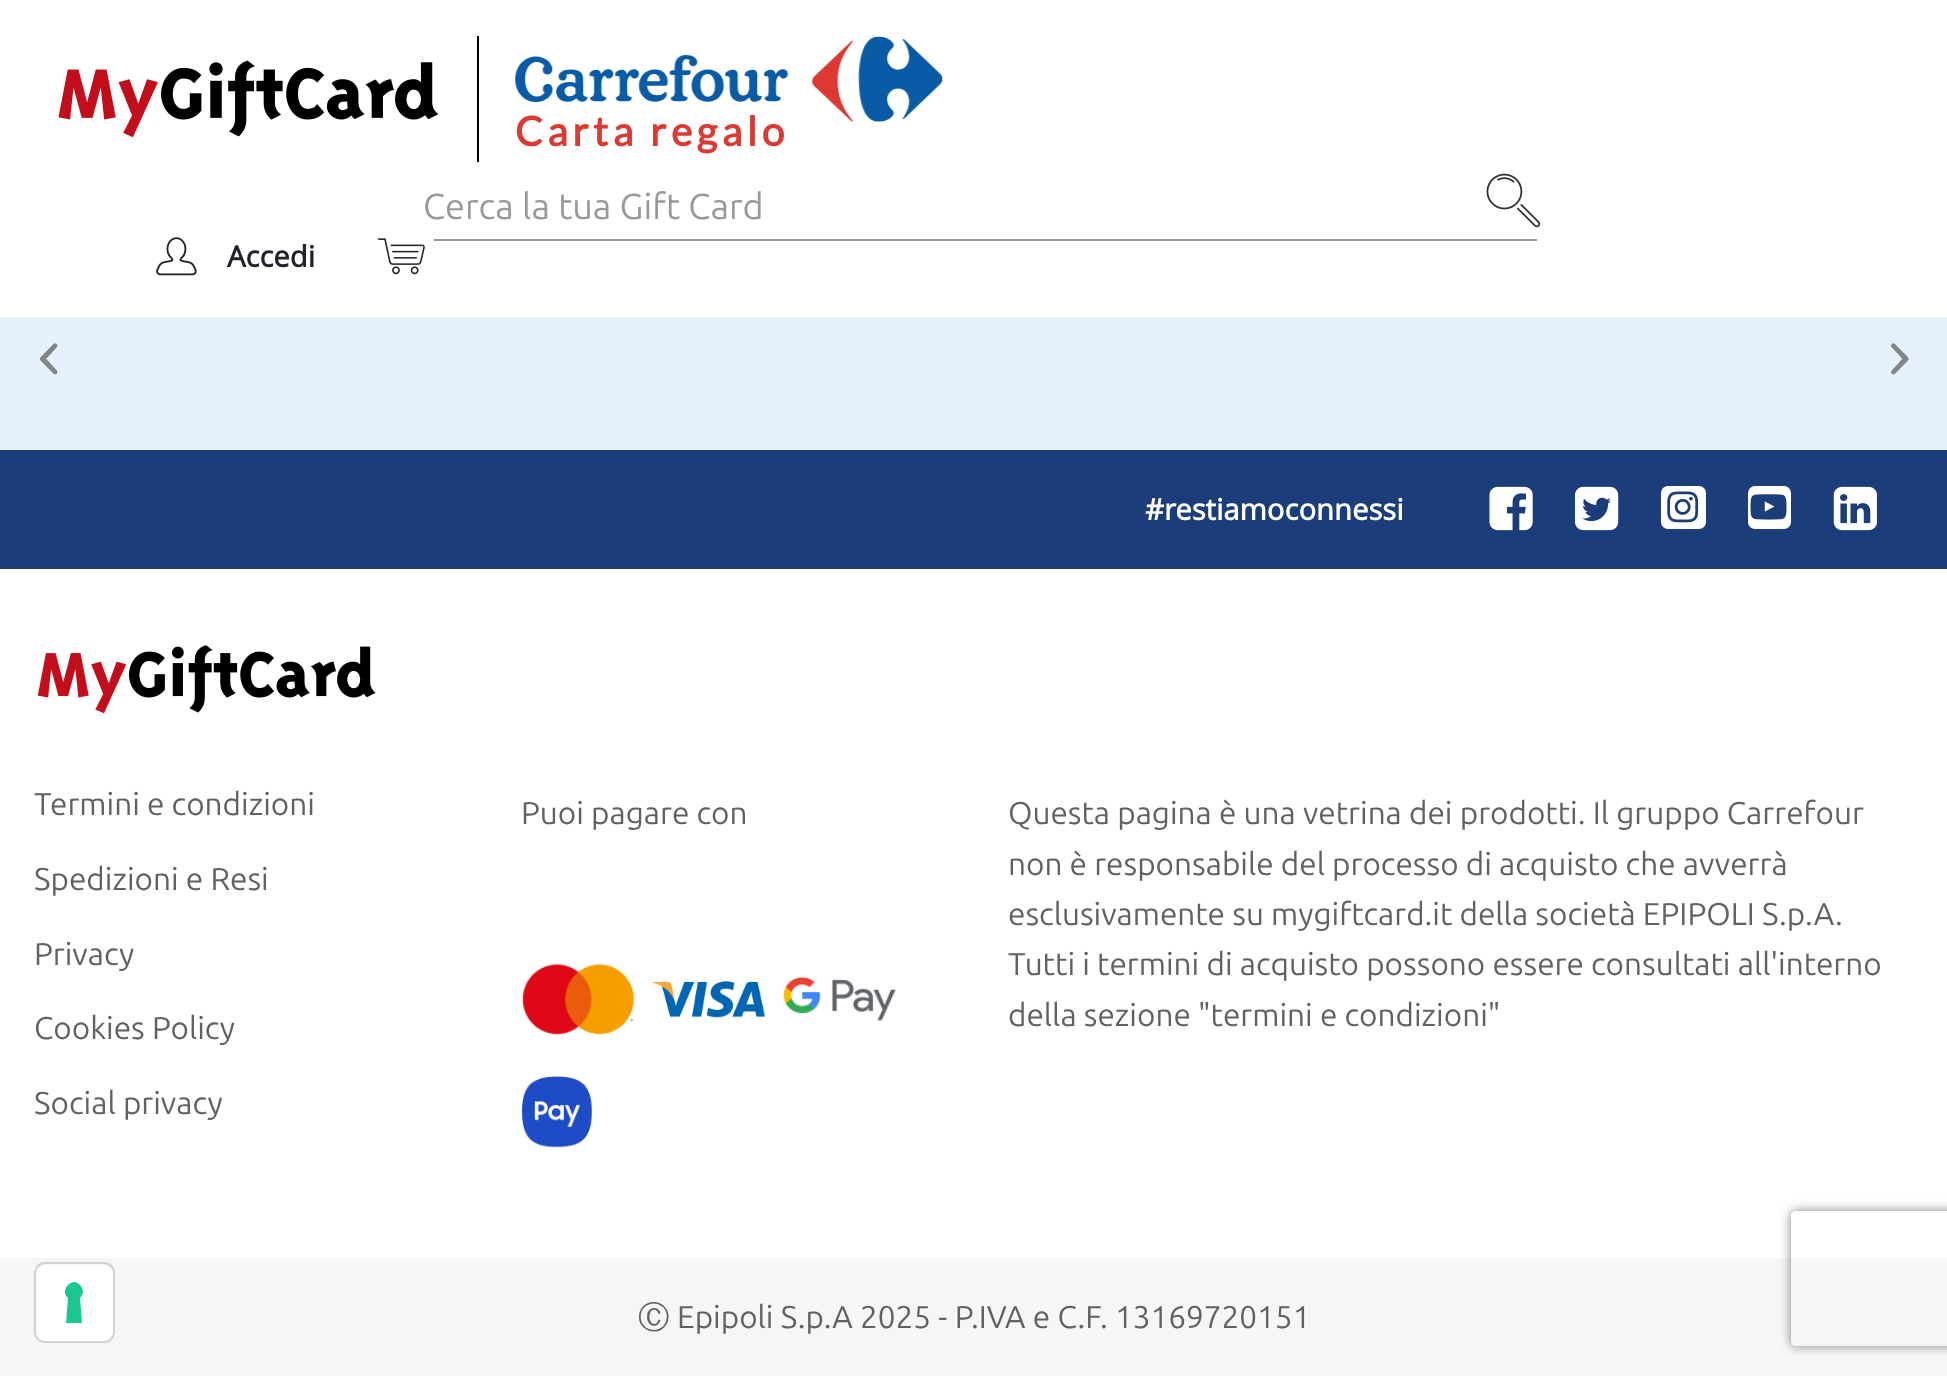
<?xml version="1.0" encoding="UTF-8"?>
<svg xmlns="http://www.w3.org/2000/svg" width="1947" height="1376">
    <defs>
        <clipPath id="clip1"><path d="M 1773 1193 H 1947 V 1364 H 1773 Z M 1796 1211 H 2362 C 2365 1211 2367 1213 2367 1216 V 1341 C 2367 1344 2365 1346 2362 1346 H 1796 C 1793 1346 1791 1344 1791 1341 V 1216 C 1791 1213 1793 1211 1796 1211 Z" clip-rule="evenodd"/></clipPath>
        <filter id="blur1" x="-50%" y="-200%" width="200%" height="500%"><feGaussianBlur stdDeviation="5.5"/></filter>
    </defs>
    <rect width="100%" height="100%" fill="#FFFFFF"/>
    <image x="58" y="60" width="381" height="78" href="img_01.png"/>
    <rect x="477" y="36" width="2" height="126" fill="#000000"/>
    <image x="515" y="36" width="428" height="86" href="img_02.png"/>
    <text x="515" y="146" font-family="Lato" font-size="40.5" font-weight="700" letter-spacing="4.5" fill="#DB3931">Carta regalo</text>
    <rect x="434" y="239" width="1103" height="2" fill="#999999"/>
    <text x="423" y="219" font-family="Ubuntu" font-size="36" fill="#999999">Cerca la tua Gift Card</text>
    <image x="1486" y="173" width="55" height="55" href="img_03.png"/>
    <image x="156" y="237" width="41" height="39" href="img_04.png"/>
    <text x="227" y="267" font-family="Open Sans" font-size="29.25" font-weight="700" fill="#20232B">Accedi</text>
    <image x="378" y="238" width="47" height="37" href="img_05.png"/>
    <rect x="0" y="317" width="1947" height="133" fill="#E6F1FC"/>
    <image x="39" y="343" width="19" height="32" href="img_06.png"/>
    <image x="1891" y="343" width="18" height="32" href="img_07.png"/>
    <rect x="0" y="450" width="1947" height="119" fill="#1B3D79"/>
    <text x="1145" y="520" font-family="Open Sans" font-size="29.25" font-weight="700" fill="#FFFFFF">#restiamoconnessi</text>
    <image x="1489" y="486" width="44" height="45" href="img_08.png"/>
    <image x="1575" y="486" width="44" height="45" href="img_09.png"/>
    <rect x="1661" y="486" width="45" height="43" rx="7" fill="#FFFFFF"/>
    <image x="1667" y="491" width="32" height="32" href="img_10.png"/>
    <rect x="1748" y="486" width="43" height="43" rx="7" fill="#FFFFFF"/>
    <image x="1750" y="494" width="37" height="26" href="img_11.png"/>
    <image x="1833" y="486" width="44" height="45" href="img_12.png"/>
    <image x="37" y="645" width="339" height="69" href="img_13.png"/>
    <text x="34" y="815" font-family="Ubuntu" font-size="31.5" fill="#616161">Termini e condizioni</text>
    <text x="34" y="890" font-family="Ubuntu" font-size="31.5" fill="#616161">Spedizioni e Resi</text>
    <text x="34" y="965" font-family="Ubuntu" font-size="31.5" fill="#616161">Privacy</text>
    <text x="34" y="1039" font-family="Ubuntu" font-size="31.5" fill="#616161">Cookies Policy</text>
    <text x="34" y="1114" font-family="Ubuntu" font-size="31.5" fill="#616161">Social privacy</text>
    <text x="521" y="824" font-family="Ubuntu" font-size="31.5" fill="#616161">Puoi pagare con</text>
    <image x="522" y="964" width="113" height="71" href="img_14.png"/>
    <image x="652" y="981" width="113" height="37" href="img_15.png"/>
    <image x="783" y="976" width="113" height="45" href="img_16.png"/>
    <image x="522" y="1076" width="70" height="72" href="img_17.png"/>
    <text font-family="Ubuntu" font-size="31.5" fill="#616161">
        <tspan x="1008" y="824">Questa pagina è una vetrina dei prodotti. Il gruppo Carrefour</tspan>
        <tspan x="1008" y="875">non è responsabile del processo di acquisto che avverrà</tspan>
        <tspan x="1008" y="925">esclusivamente su mygiftcard.it della società EPIPOLI S.p.A.</tspan>
        <tspan x="1008" y="975">Tutti i termini di acquisto possono essere consultati all'interno</tspan>
        <tspan x="1008" y="1026">della sezione "termini e condizioni"</tspan>
    </text>
    <rect x="0" y="1258" width="1947" height="118" fill="#F6F6F6"/>
    <text x="638" y="1328" font-family="WenQuanYi Zen Hei" font-size="31.5" font-weight="500" fill="#616161">Ⓒ</text>
    <text x="677" y="1328" font-family="Ubuntu" font-size="31.5" fill="#616161">Epipoli S.p.A 2025 - P.IVA e C.F. 13169720151</text>
    <rect x="35" y="1263" width="79" height="79" rx="10" fill="none" stroke="#D1D1D1" stroke-width="2"/>
    <rect x="36" y="1265" width="77" height="76" rx="9" fill="#FFFFFF"/>
    <path d="M 74 1282 C 82 1283 86 1293 80 1298 L 82 1323 H 66 L 68 1298 C 62 1293 66 1283 74 1282 Z" fill="#1CC691" fill-rule="evenodd"/>
    <g clip-path="url(#clip1)">
        <rect x="1791" y="1211" width="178" height="135" rx="5" fill="#808080" filter="url(#blur1)"/>
    </g>
</svg>
